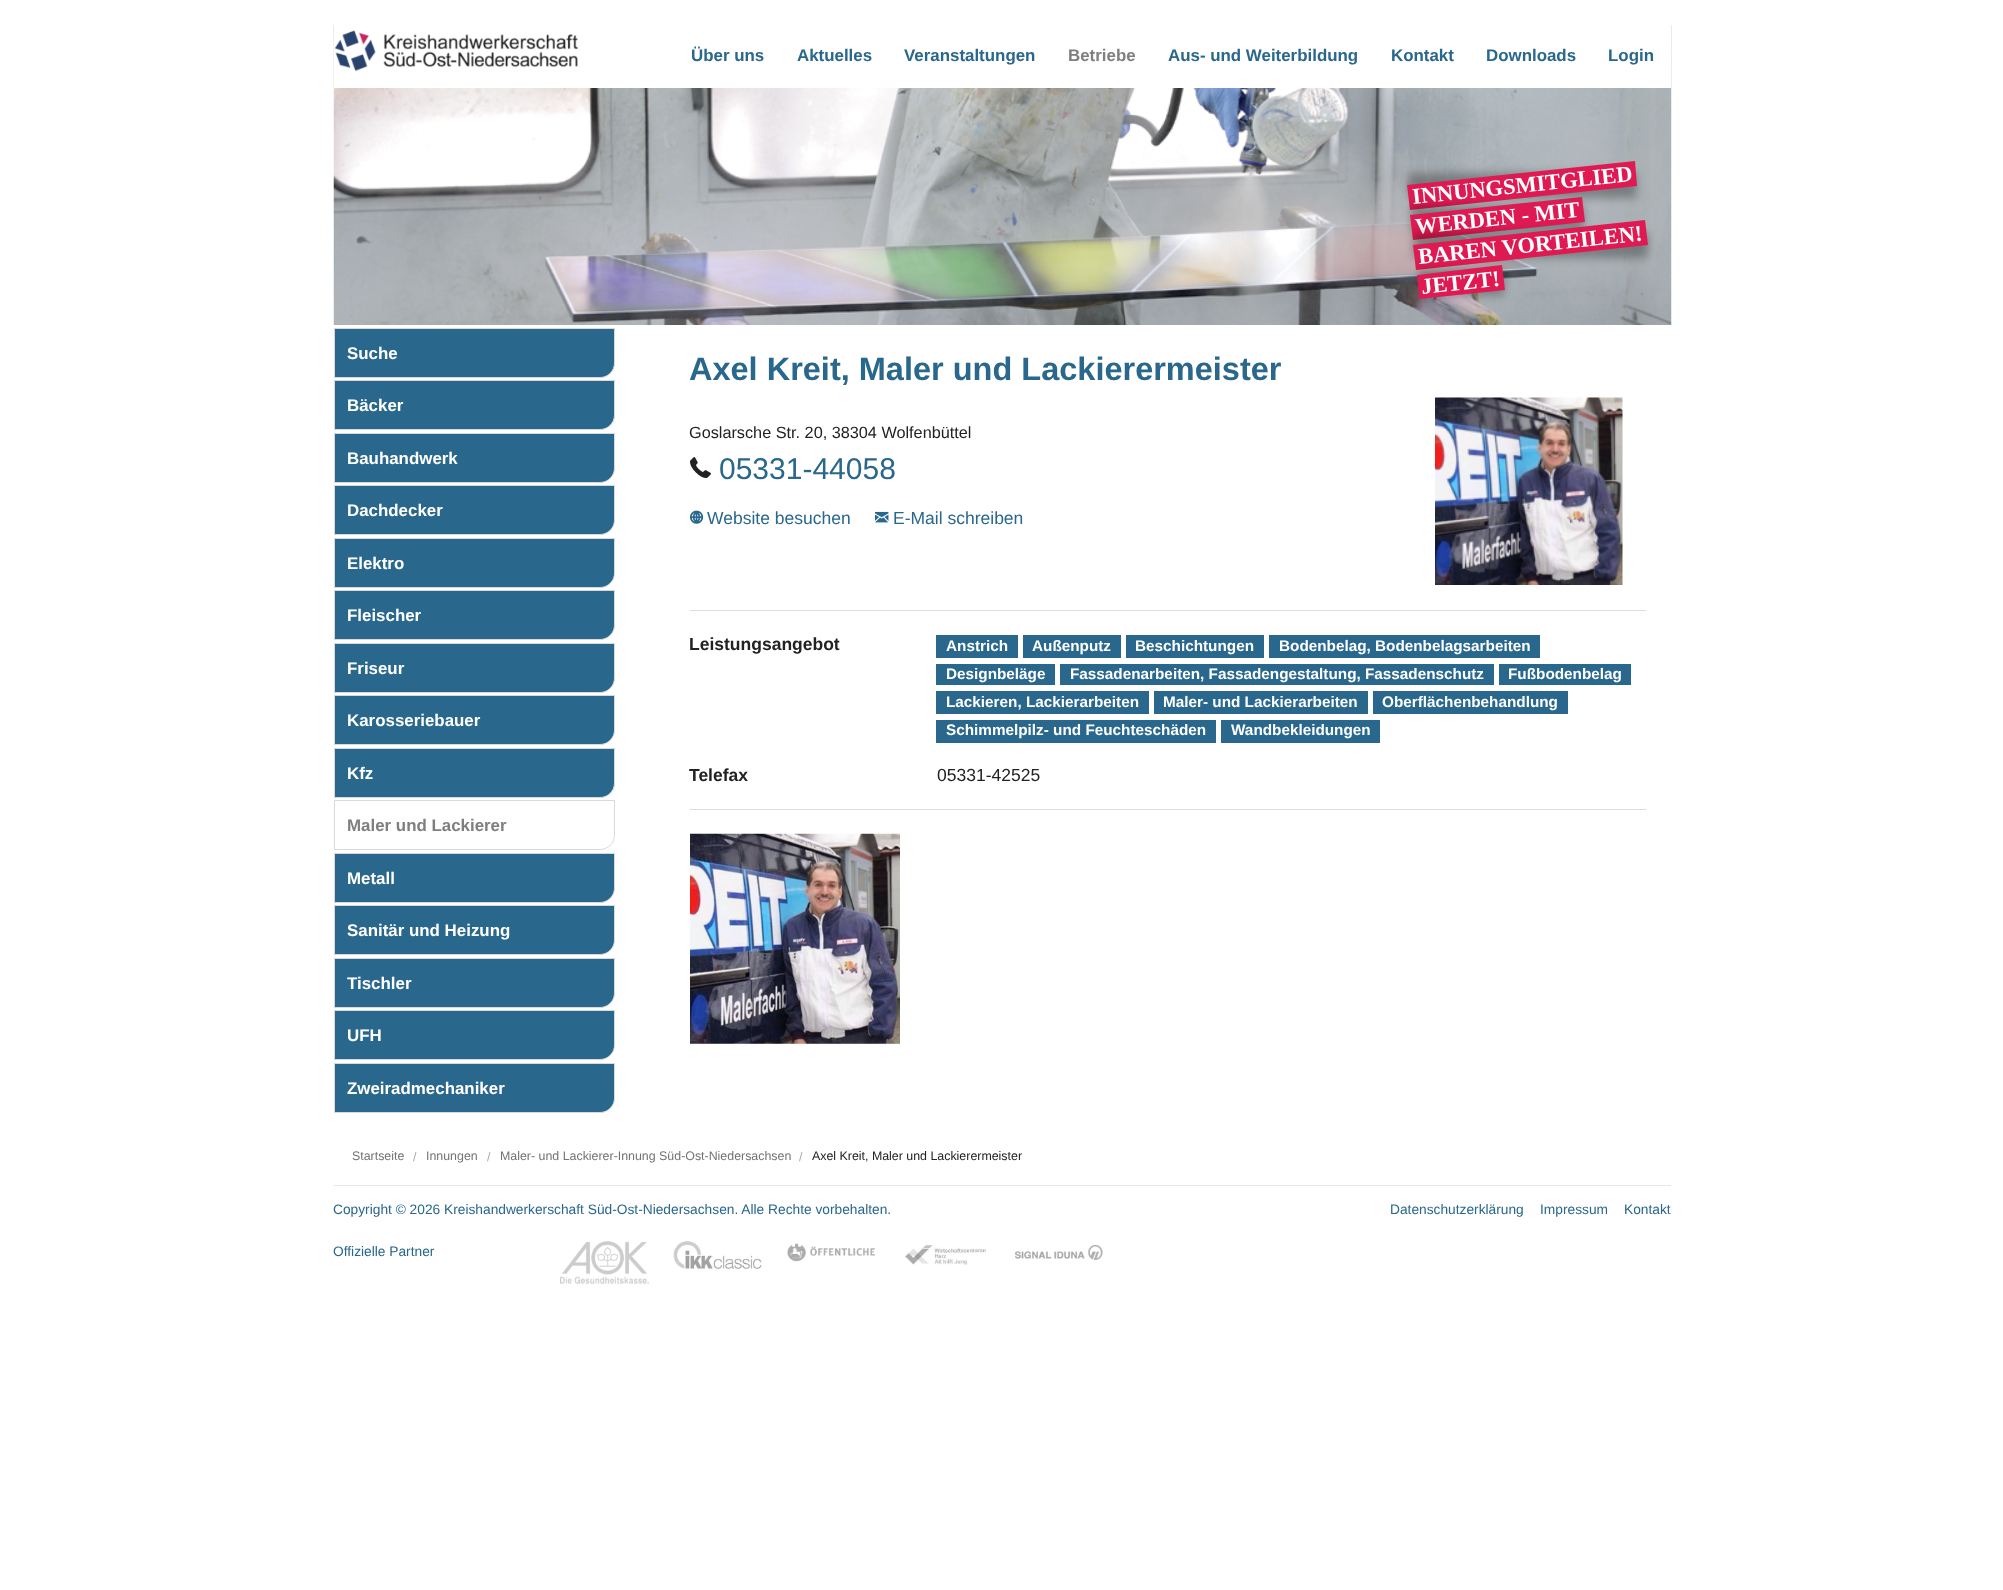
<?xml version="1.0" encoding="UTF-8"?>
<svg xmlns="http://www.w3.org/2000/svg" width="2003" height="1590">
    <defs>
        <filter id="blur1" x="-50%" y="-200%" width="200%" height="500%"><feGaussianBlur stdDeviation="5"/></filter>
    </defs>
    <rect width="100%" height="100%" fill="#FFFFFF"/>
    <rect x="334" y="1185" width="1337" height="1" fill="#E6E6E6"/>
    <image x="333" y="25" width="1339" height="300" href="img_01.png"/>
    <rect x="334" y="25" width="1337" height="63" fill="#FFFFFF"/>
    <image x="334" y="30" width="244" height="42" href="img_02.png"/>
    <text x="691" y="61" font-family="Liberation Sans" font-size="16.9" font-weight="700" fill="#29678C">Über uns</text>
    <text x="797" y="61" font-family="Liberation Sans" font-size="16.9" font-weight="700" fill="#29678C">Aktuelles</text>
    <text x="904" y="61" font-family="Liberation Sans" font-size="16.9" font-weight="700" fill="#29678C">Veranstaltungen</text>
    <text x="1068" y="61" font-family="Liberation Sans" font-size="16.9" font-weight="700" fill="#7F7F7F">Betriebe</text>
    <text x="1168" y="61" font-family="Liberation Sans" font-size="16.9" font-weight="700" fill="#29678C">Aus- und Weiterbildung</text>
    <text x="1391" y="61" font-family="Liberation Sans" font-size="16.9" font-weight="700" fill="#29678C">Kontakt</text>
    <text x="1486" y="61" font-family="Liberation Sans" font-size="16.9" font-weight="700" fill="#29678C">Downloads</text>
    <text x="1608" y="61" font-family="Liberation Sans" font-size="16.9" font-weight="700" fill="#29678C">Login</text>
    <rect x="1408" y="173" width="228" height="25" fill="#000000" fill-opacity="0.3" filter="url(#blur1)"/>
    <path d="M 1407 185 L 1635 161 L 1637 186 L 1410 210 Z" fill="#DF1A52"/>
    <text x="1413" y="204" transform="rotate(-6 1413 204)" font-family="Liberation Serif" font-size="22.5" font-weight="700" fill="#FFFFFF">INNUNGSMITGLIED</text>
    <rect x="1411" y="206" width="173" height="25" fill="#000000" fill-opacity="0.3" filter="url(#blur1)"/>
    <path d="M 1410 215 L 1582 197 L 1585 222 L 1413 240 Z" fill="#DF1A52"/>
    <text x="1416" y="234" transform="rotate(-6 1416 234)" font-family="Liberation Serif" font-size="22.5" font-weight="700" fill="#FFFFFF">WERDEN - MIT</text>
    <rect x="1414" y="233" width="234" height="25" fill="#000000" fill-opacity="0.3" filter="url(#blur1)"/>
    <path d="M 1413 245 L 1645 220 L 1648 245 L 1416 270 Z" fill="#DF1A52"/>
    <text x="1419" y="264" transform="rotate(-6 1419 264)" font-family="Liberation Serif" font-size="22.5" font-weight="700" fill="#FFFFFF">BAREN VORTEILEN!</text>
    <rect x="1418" y="270" width="86" height="25" fill="#000000" fill-opacity="0.3" filter="url(#blur1)"/>
    <path d="M 1417 275 L 1502 265 L 1505 290 L 1419 299 Z" fill="#DF1A52"/>
    <text x="1422" y="294" transform="rotate(-6 1422 294)" font-family="Liberation Serif" font-size="22.5" font-weight="700" fill="#FFFFFF">JETZT!</text>
    <path d="M 334.5 328.5 H 614.5 V 363 C 614.5 371 608 377.5 600 377.5 H 334.5 Z" fill="#29678C" stroke="#D9D9D9"/>
    <text x="347" y="359" font-family="Liberation Sans" font-size="16.9" font-weight="700" fill="#FFFFFF">Suche</text>
    <path d="M 334.5 380.5 H 614.5 V 415 C 614.5 423 608 429.5 600 429.5 H 334.5 Z" fill="#29678C" stroke="#D9D9D9"/>
    <text x="347" y="411" font-family="Liberation Sans" font-size="16.9" font-weight="700" fill="#FFFFFF">Bäcker</text>
    <path d="M 334.5 433.5 H 614.5 V 468 C 614.5 476 608 482.5 600 482.5 H 334.5 Z" fill="#29678C" stroke="#D9D9D9"/>
    <text x="347" y="464" font-family="Liberation Sans" font-size="16.9" font-weight="700" fill="#FFFFFF">Bauhandwerk</text>
    <path d="M 334.5 485.5 H 614.5 V 520 C 614.5 528 608 534.5 600 534.5 H 334.5 Z" fill="#29678C" stroke="#D9D9D9"/>
    <text x="347" y="516" font-family="Liberation Sans" font-size="16.9" font-weight="700" fill="#FFFFFF">Dachdecker</text>
    <path d="M 334.5 538.5 H 614.5 V 573 C 614.5 581 608 587.5 600 587.5 H 334.5 Z" fill="#29678C" stroke="#D9D9D9"/>
    <text x="347" y="569" font-family="Liberation Sans" font-size="16.9" font-weight="700" fill="#FFFFFF">Elektro</text>
    <path d="M 334.5 590.5 H 614.5 V 625 C 614.5 633 608 639.5 600 639.5 H 334.5 Z" fill="#29678C" stroke="#D9D9D9"/>
    <text x="347" y="621" font-family="Liberation Sans" font-size="16.9" font-weight="700" fill="#FFFFFF">Fleischer</text>
    <path d="M 334.5 643.5 H 614.5 V 678 C 614.5 686 608 692.5 600 692.5 H 334.5 Z" fill="#29678C" stroke="#D9D9D9"/>
    <text x="347" y="674" font-family="Liberation Sans" font-size="16.9" font-weight="700" fill="#FFFFFF">Friseur</text>
    <path d="M 334.5 695.5 H 614.5 V 730 C 614.5 738 608 744.5 600 744.5 H 334.5 Z" fill="#29678C" stroke="#D9D9D9"/>
    <text x="347" y="726" font-family="Liberation Sans" font-size="16.9" font-weight="700" fill="#FFFFFF">Karosseriebauer</text>
    <path d="M 334.5 748.5 H 614.5 V 783 C 614.5 791 608 797.5 600 797.5 H 334.5 Z" fill="#29678C" stroke="#D9D9D9"/>
    <text x="347" y="779" font-family="Liberation Sans" font-size="16.9" font-weight="700" fill="#FFFFFF">Kfz</text>
    <path d="M 334.5 800.5 H 614.5 V 835 C 614.5 843 608 849.5 600 849.5 H 334.5 Z" fill="none" stroke="#D9D9D9"/>
    <text x="347" y="831" font-family="Liberation Sans" font-size="16.9" font-weight="700" fill="#7F7F7F">Maler und Lackierer</text>
    <path d="M 334.5 853.5 H 614.5 V 888 C 614.5 896 608 902.5 600 902.5 H 334.5 Z" fill="#29678C" stroke="#D9D9D9"/>
    <text x="347" y="884" font-family="Liberation Sans" font-size="16.9" font-weight="700" fill="#FFFFFF">Metall</text>
    <path d="M 334.5 905.5 H 614.5 V 940 C 614.5 948 608 954.5 600 954.5 H 334.5 Z" fill="#29678C" stroke="#D9D9D9"/>
    <text x="347" y="936" font-family="Liberation Sans" font-size="16.9" font-weight="700" fill="#FFFFFF">Sanitär und Heizung</text>
    <path d="M 334.5 958.5 H 614.5 V 993 C 614.5 1001 608 1007.5 600 1007.5 H 334.5 Z" fill="#29678C" stroke="#D9D9D9"/>
    <text x="347" y="989" font-family="Liberation Sans" font-size="16.9" font-weight="700" fill="#FFFFFF">Tischler</text>
    <path d="M 334.5 1010.5 H 614.5 V 1045 C 614.5 1053 608 1059.5 600 1059.5 H 334.5 Z" fill="#29678C" stroke="#D9D9D9"/>
    <text x="347" y="1041" font-family="Liberation Sans" font-size="16.9" font-weight="700" fill="#FFFFFF">UFH</text>
    <path d="M 334.5 1063.5 H 614.5 V 1098 C 614.5 1106 608 1112.5 600 1112.5 H 334.5 Z" fill="#29678C" stroke="#D9D9D9"/>
    <text x="347" y="1094" font-family="Liberation Sans" font-size="16.9" font-weight="700" fill="#FFFFFF">Zweiradmechaniker</text>
    <text x="689" y="380" font-family="Liberation Sans" font-size="32.5" font-weight="700" fill="#29678C">Axel Kreit, Maler und Lackierermeister</text>
    <text x="689" y="438" font-family="Liberation Sans" font-size="16.25" fill="#222222">Goslarsche Str. 20, 38304 Wolfenbüttel</text>
    <image x="690" y="457" width="21" height="21" href="img_03.png"/>
    <text x="719" y="479" font-family="Liberation Sans" font-size="30" fill="#29678C">05331-44058</text>
    <image x="690" y="510" width="14" height="14" href="img_04.png"/>
    <text x="707" y="524" font-family="Liberation Sans" font-size="17.5" fill="#29678C">Website besuchen</text>
    <image x="875" y="511" width="14" height="12" href="img_05.png"/>
    <text x="893" y="524" font-family="Liberation Sans" font-size="17.5" fill="#29678C">E-Mail schreiben</text>
    <image x="1435" y="397" width="188" height="188" href="img_06.png"/>
    <rect x="690" y="610" width="956" height="1" fill="#DDDDDD"/>
    <text x="689" y="650" font-family="Liberation Sans" font-size="17.5" font-weight="700" fill="#222222">Leistungsangebot</text>
    <rect x="936" y="635" width="82" height="23" fill="#29678C"/>
    <text x="946" y="651" font-family="Liberation Sans" font-size="15.3" font-weight="700" fill="#FFFFFF">Anstrich</text>
    <rect x="1023" y="635" width="98" height="23" fill="#29678C"/>
    <text x="1032" y="651" font-family="Liberation Sans" font-size="15.3" font-weight="700" fill="#FFFFFF">Außenputz</text>
    <rect x="1126" y="635" width="138" height="23" fill="#29678C"/>
    <text x="1135" y="651" font-family="Liberation Sans" font-size="15.3" font-weight="700" fill="#FFFFFF">Beschichtungen</text>
    <rect x="1269" y="635" width="271" height="23" fill="#29678C"/>
    <text x="1279" y="651" font-family="Liberation Sans" font-size="15.3" font-weight="700" fill="#FFFFFF">Bodenbelag, Bodenbelagsarbeiten</text>
    <rect x="936" y="664" width="119" height="21" fill="#29678C"/>
    <text x="946" y="679" font-family="Liberation Sans" font-size="15.3" font-weight="700" fill="#FFFFFF">Designbeläge</text>
    <rect x="1060" y="664" width="434" height="21" fill="#29678C"/>
    <text x="1070" y="679" font-family="Liberation Sans" font-size="15.3" font-weight="700" fill="#FFFFFF">Fassadenarbeiten, Fassadengestaltung, Fassadenschutz</text>
    <rect x="1499" y="664" width="132" height="21" fill="#29678C"/>
    <text x="1508" y="679" font-family="Liberation Sans" font-size="15.3" font-weight="700" fill="#FFFFFF">Fußbodenbelag</text>
    <rect x="936" y="691" width="213" height="23" fill="#29678C"/>
    <text x="946" y="707" font-family="Liberation Sans" font-size="15.3" font-weight="700" fill="#FFFFFF">Lackieren, Lackierarbeiten</text>
    <rect x="1154" y="691" width="214" height="23" fill="#29678C"/>
    <text x="1163" y="707" font-family="Liberation Sans" font-size="15.3" font-weight="700" fill="#FFFFFF">Maler- und Lackierarbeiten</text>
    <rect x="1373" y="691" width="195" height="23" fill="#29678C"/>
    <text x="1382" y="707" font-family="Liberation Sans" font-size="15.3" font-weight="700" fill="#FFFFFF">Oberflächenbehandlung</text>
    <rect x="936" y="720" width="280" height="23" fill="#29678C"/>
    <text x="946" y="735" font-family="Liberation Sans" font-size="15.3" font-weight="700" fill="#FFFFFF">Schimmelpilz- und Feuchteschäden</text>
    <rect x="1221" y="720" width="159" height="23" fill="#29678C"/>
    <text x="1231" y="735" font-family="Liberation Sans" font-size="15.3" font-weight="700" fill="#FFFFFF">Wandbekleidungen</text>
    <text x="689" y="781" font-family="Liberation Sans" font-size="17.5" font-weight="700" fill="#222222">Telefax</text>
    <text x="937" y="781" font-family="Liberation Sans" font-size="17.5" fill="#222222">05331-42525</text>
    <rect x="690" y="809" width="956" height="1" fill="#DDDDDD"/>
    <image x="690" y="833" width="210" height="211" href="img_07.png"/>
    <text x="352" y="1160" font-family="Liberation Sans" font-size="12.4" fill="#737373">Startseite</text>
    <text x="413" y="1161" font-family="Liberation Sans" font-size="12.4" fill="#AAAAAA">/</text>
    <text x="426" y="1160" font-family="Liberation Sans" font-size="12.4" fill="#737373">Innungen</text>
    <text x="487" y="1161" font-family="Liberation Sans" font-size="12.4" fill="#AAAAAA">/</text>
    <text x="500" y="1160" font-family="Liberation Sans" font-size="12.4" fill="#737373">Maler- und Lackierer-Innung Süd-Ost-Niedersachsen</text>
    <text x="799" y="1161" font-family="Liberation Sans" font-size="12.4" fill="#AAAAAA">/</text>
    <text x="812" y="1160" font-family="Liberation Sans" font-size="12.4" fill="#222222">Axel Kreit, Maler und Lackierermeister</text>
    <text x="333" y="1214" font-family="Liberation Sans" font-size="13.75" fill="#29678C">Copyright © 2026 Kreishandwerkerschaft Süd-Ost-Niedersachsen. Alle Rechte vorbehalten.</text>
    <text x="1390" y="1214" font-family="Liberation Sans" font-size="13.75" fill="#29678C">Datenschutzerklärung</text>
    <text x="1540" y="1214" font-family="Liberation Sans" font-size="13.75" fill="#29678C">Impressum</text>
    <text x="1624" y="1214" font-family="Liberation Sans" font-size="13.75" fill="#29678C">Kontakt</text>
    <text x="333" y="1256" font-family="Liberation Sans" font-size="13.75" fill="#29678C">Offizielle Partner</text>
    <image x="560" y="1241" width="89" height="43" href="img_08.png"/>
    <image x="673" y="1241" width="89" height="28" href="img_09.png"/>
    <image x="787" y="1243" width="88" height="19" href="img_10.png"/>
    <image x="904" y="1245" width="82" height="20" href="img_11.png"/>
    <image x="1015" y="1245" width="88" height="15" href="img_12.png"/>
</svg>
